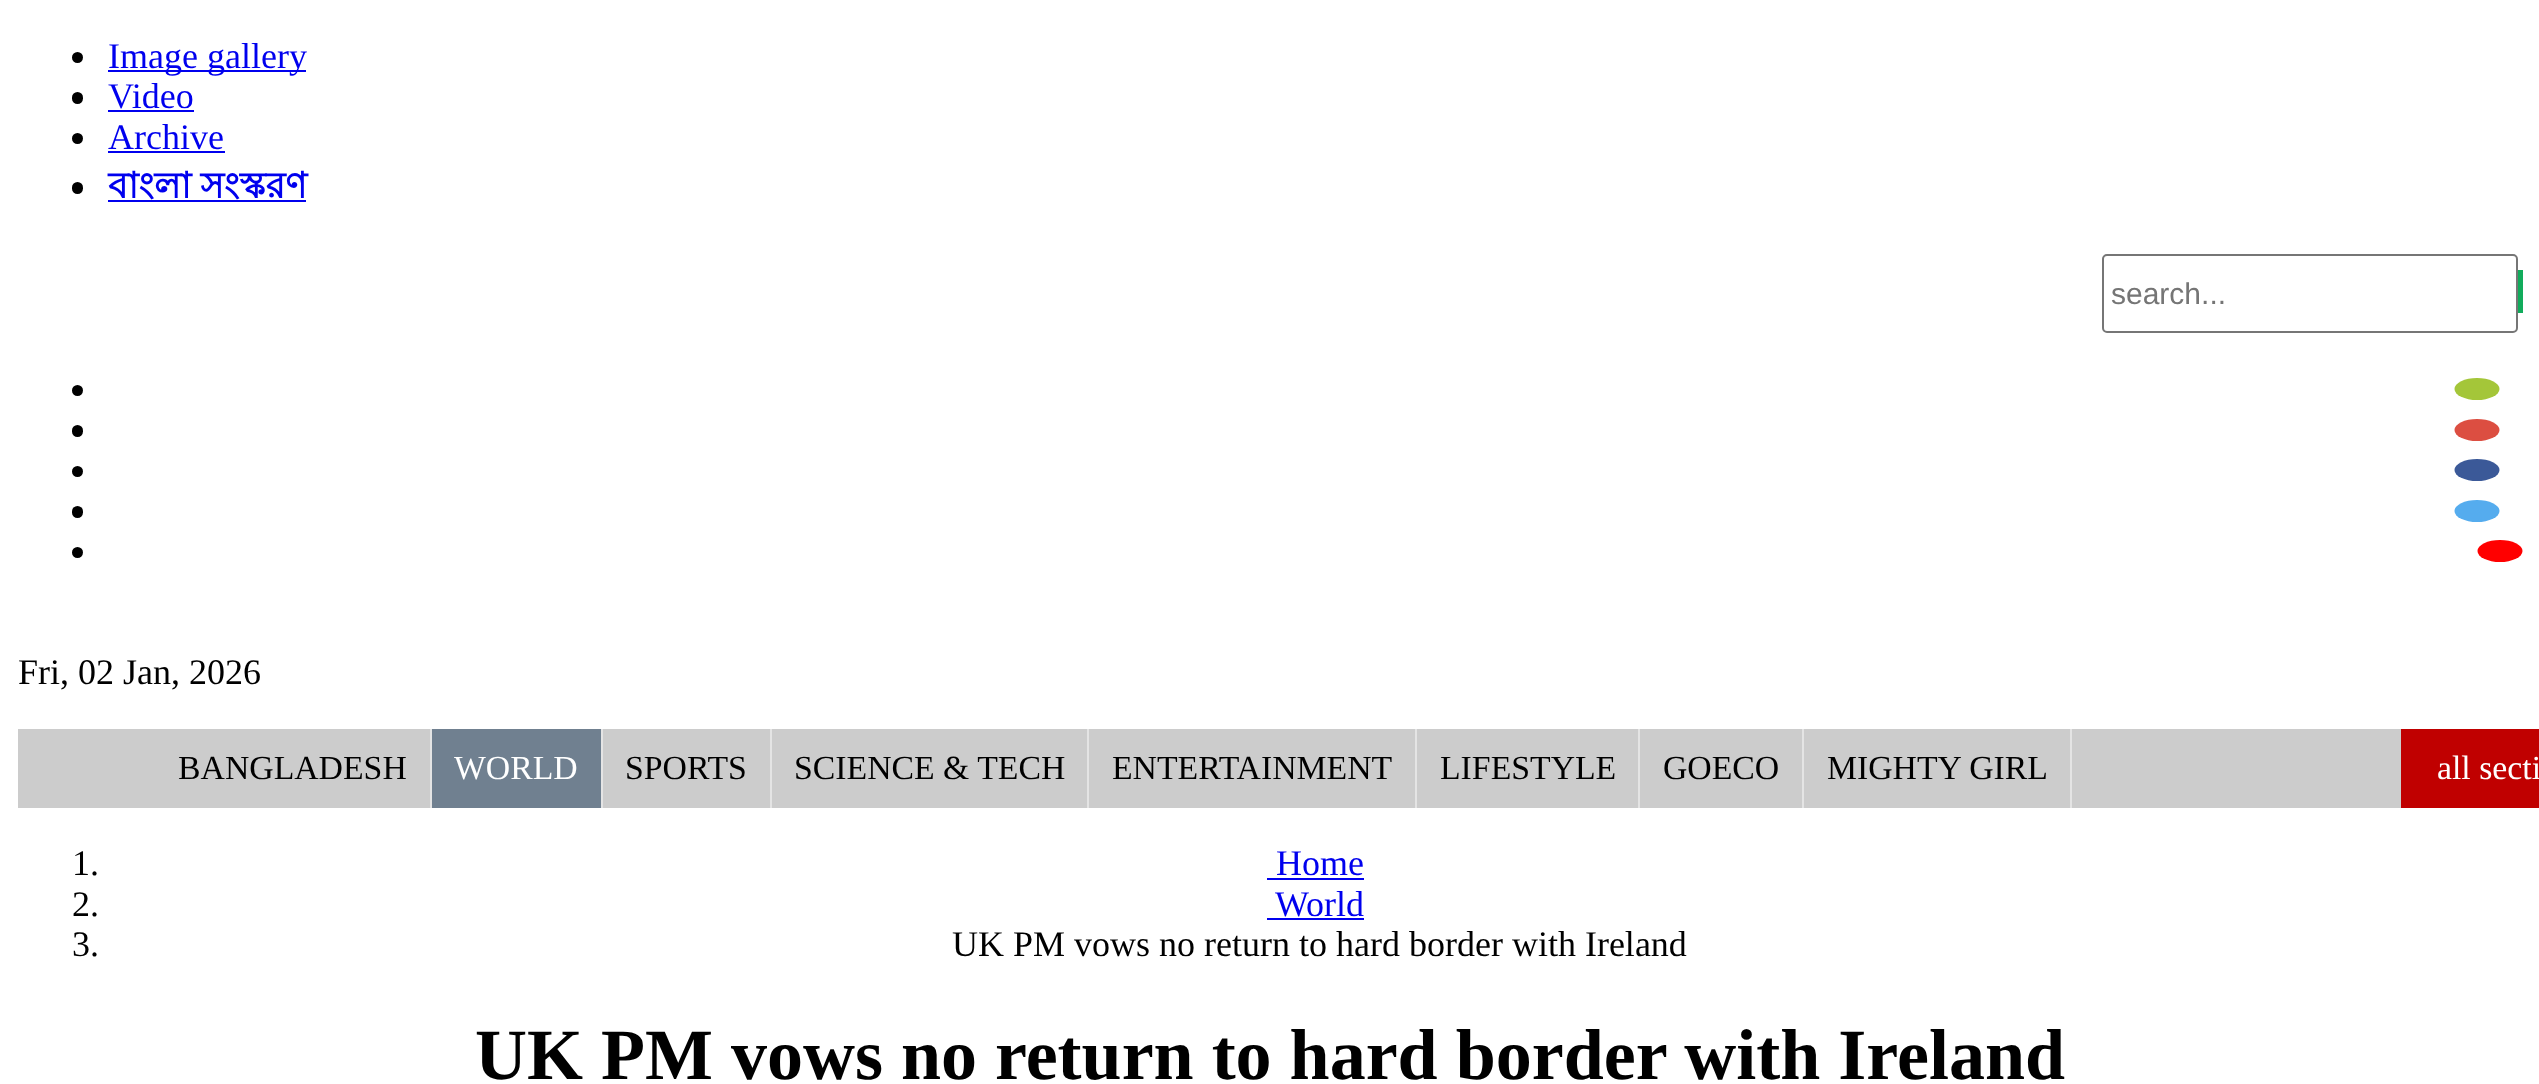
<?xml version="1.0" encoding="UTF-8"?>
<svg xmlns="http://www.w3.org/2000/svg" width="2539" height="1084">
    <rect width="100%" height="100%" fill="#FFFFFF"/>
    <circle cx="77.5" cy="57.5" r="5.5" fill="#000000"/>
    <rect x="108" y="70" width="198" height="2" fill="#0000EE"/>
    <text x="108" y="68" font-family="Liberation Serif" font-size="36" fill="#0000EE">Image gallery</text>
    <rect x="72" y="92" width="11" height="12" rx="5.5" fill="#000000"/>
    <text x="108" y="108" font-family="Liberation Serif" font-size="36" fill="#0000EE">Video</text>
    <rect x="108" y="110" width="86" height="2" fill="#0000EE"/>
    <circle cx="77.5" cy="138.5" r="5.5" fill="#000000"/>
    <text x="108" y="149" font-family="Liberation Serif" font-size="36" fill="#0000EE">Archive</text>
    <rect x="108" y="151" width="117" height="2" fill="#0000EE"/>
    <rect x="72" y="182" width="11" height="12" rx="5.5" fill="#000000"/>
    <text x="108" y="198" word-spacing="-1" font-family="Lohit Bengali" font-size="36" font-weight="700" fill="#0000EE">বাংলা সংস্করণ</text>
    <rect x="108" y="200" width="198" height="2" fill="#0000EE"/>
    <rect x="2103" y="255" width="414" height="77" rx="4" fill="none" stroke="#767676" stroke-width="2"/>
    <text x="2111" y="304" font-family="Liberation Sans" font-size="30" fill="#757575">search...</text>
    <rect x="2518" y="270" width="5" height="43" fill="#11AC5C"/>
    <circle cx="77.5" cy="390.5" r="5.5" fill="#000000"/>
    <ellipse cx="2477" cy="389" rx="22.5" ry="11" fill="#A4C639"/>
    <rect x="72" y="425" width="11" height="12" rx="5.5" fill="#000000"/>
    <ellipse cx="2477" cy="430" rx="22.5" ry="11" fill="#DC4E41"/>
    <circle cx="77.5" cy="471.5" r="5.5" fill="#000000"/>
    <ellipse cx="2477" cy="470" rx="22.5" ry="11" fill="#3B5998"/>
    <rect x="72" y="506" width="11" height="12" rx="5.5" fill="#000000"/>
    <ellipse cx="2477" cy="511" rx="22.5" ry="11" fill="#55ACEE"/>
    <circle cx="77.5" cy="552.5" r="5.5" fill="#000000"/>
    <ellipse cx="2500" cy="551" rx="22.5" ry="11" fill="#FF0000"/>
    <text x="18" y="684" font-family="Liberation Serif" font-size="36" fill="#000000">Fri, 02 Jan, 2026</text>
    <rect x="18" y="729" width="2383" height="79" fill="#CCCCCC"/>
    <rect x="430" y="729" width="2" height="79" fill="#E4E4E4"/>
    <text x="178" y="779" font-family="Liberation Serif" font-size="33.75" fill="#000000">BANGLADESH</text>
    <rect x="601" y="729" width="2" height="79" fill="#E4E4E4"/>
    <rect x="432" y="729" width="169" height="79" fill="#708090"/>
    <text x="454" y="779" font-family="Liberation Serif" font-size="33.75" fill="#FFFFFF">WORLD</text>
    <rect x="770" y="729" width="2" height="79" fill="#E4E4E4"/>
    <text x="625" y="779" font-family="Liberation Serif" font-size="33.75" fill="#000000">SPORTS</text>
    <rect x="1087" y="729" width="2" height="79" fill="#E4E4E4"/>
    <text x="794" y="779" font-family="Liberation Serif" font-size="33.75" fill="#000000">SCIENCE &amp; TECH</text>
    <rect x="1415" y="729" width="2" height="79" fill="#E4E4E4"/>
    <text x="1112" y="779" font-family="Liberation Serif" font-size="33.75" fill="#000000">ENTERTAINMENT</text>
    <rect x="1638" y="729" width="2" height="79" fill="#E4E4E4"/>
    <text x="1440" y="779" font-family="Liberation Serif" font-size="33.75" fill="#000000">LIFESTYLE</text>
    <rect x="1802" y="729" width="2" height="79" fill="#E4E4E4"/>
    <text x="1663" y="779" font-family="Liberation Serif" font-size="33.75" fill="#000000">GOECO</text>
    <rect x="2070" y="729" width="2" height="79" fill="#E4E4E4"/>
    <text x="1827" y="779" font-family="Liberation Serif" font-size="33.75" fill="#000000">MIGHTY GIRL</text>
    <rect x="2401" y="729" width="138" height="79" fill="#C00000"/>
    <text x="2437" y="779" font-family="Liberation Serif" font-size="33.75" fill="#FFFFFF">all secti</text>
    <text x="72" y="875" font-family="Liberation Serif" font-size="36" fill="#000000">1.</text>
    <text x="1276" y="875" font-family="Liberation Serif" font-size="36" fill="#0000EE">Home</text>
    <rect x="1267" y="878" width="97" height="2" fill="#0000EE"/>
    <text x="72" y="916" font-family="Liberation Serif" font-size="36" fill="#000000">2.</text>
    <text x="1275" y="916" font-family="Liberation Serif" font-size="36" fill="#0000EE">World</text>
    <rect x="1267" y="918" width="97" height="2" fill="#0000EE"/>
    <text x="72" y="956" font-family="Liberation Serif" font-size="36" fill="#000000">3.</text>
    <text x="952" y="956" font-family="Liberation Serif" font-size="36" fill="#000000">UK PM vows no return to hard border with Ireland</text>
    <text x="475" y="1079" font-family="Liberation Serif" font-size="72" font-weight="700" fill="#000000">UK PM vows no return to hard border with Ireland</text>
</svg>
